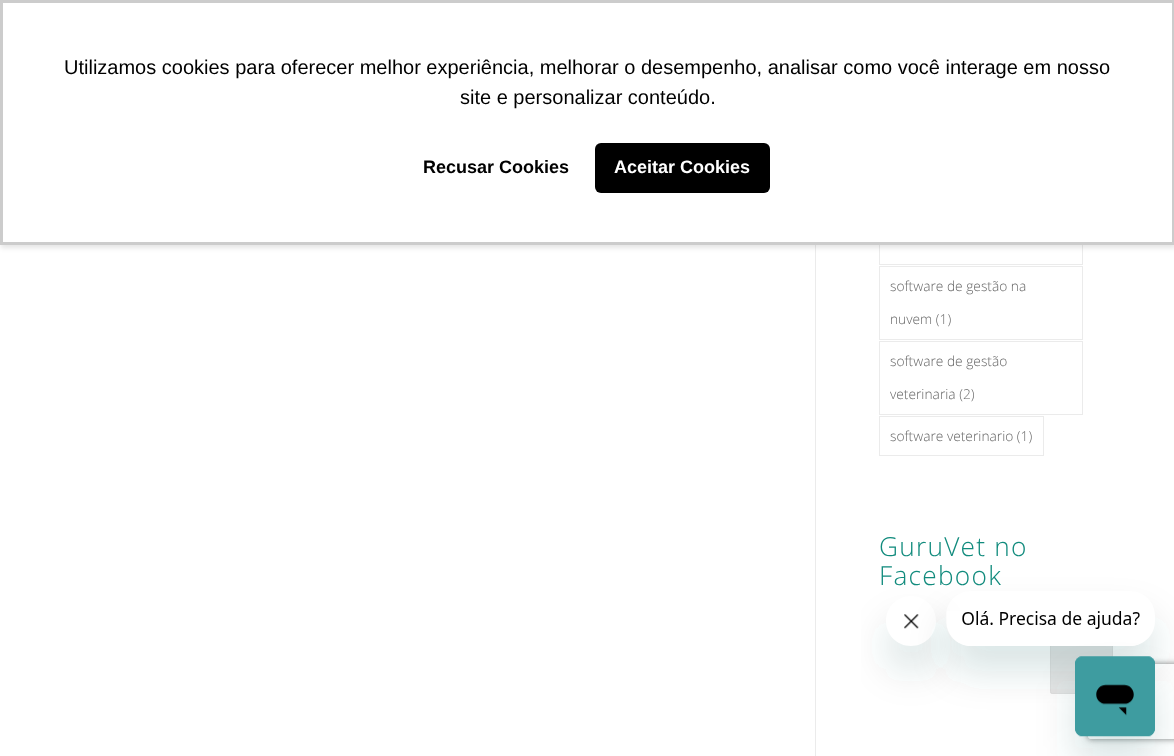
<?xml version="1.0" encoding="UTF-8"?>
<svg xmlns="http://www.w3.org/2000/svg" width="1174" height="756">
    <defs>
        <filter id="blur1" x="-50%" y="-200%" width="200%" height="500%"><feGaussianBlur stdDeviation="2.5"/></filter>
        <clipPath id="clip1"><path d="M 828 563 H 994 V 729 H 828 Z M 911 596 C 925 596 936 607 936 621 C 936 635 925 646 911 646 C 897 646 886 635 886 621 C 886 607 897 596 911 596 Z" clip-rule="evenodd"/></clipPath>
        <filter id="blur2" x="-50%" y="-200%" width="200%" height="500%"><feGaussianBlur stdDeviation="19"/></filter>
        <clipPath id="clip2"><path d="M 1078 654 H 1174 V 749 H 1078 Z M 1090.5 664 H 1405.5 C 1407 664 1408 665 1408 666.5 V 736.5 C 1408 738 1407 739 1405.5 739 H 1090.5 C 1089 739 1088 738 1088 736.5 V 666.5 C 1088 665 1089 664 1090.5 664 Z" clip-rule="evenodd"/></clipPath>
        <filter id="blur3" x="-50%" y="-200%" width="200%" height="500%"><feGaussianBlur stdDeviation="3"/></filter>
        <clipPath id="clip3"><path d="M 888 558 H 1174 V 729 H 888 Z M 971 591 H 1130 C 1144 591 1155 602 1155 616 V 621 C 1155 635 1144 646 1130 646 H 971 C 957 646 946 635 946 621 V 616 C 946 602 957 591 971 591 Z" clip-rule="evenodd"/></clipPath>
    </defs>
    <rect width="100%" height="100%" fill="#FFFFFF"/>
    <rect x="815" y="245" width="1" height="511" fill="#EBEBEB"/>
    <rect x="879.5" y="191.5" width="203" height="73" fill="none" stroke="#EBEBEB"/>
    <rect x="1" y="3" width="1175" height="245" fill="#000000" fill-opacity="0.1" filter="url(#blur1)"/>
    <rect x="1.5" y="1.5" width="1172" height="242" fill="#FFFFFF" stroke="#CCCCCC" stroke-width="3"/>
    <text x="64" y="74" font-family="Liberation Sans" font-size="20" fill="#000000">Utilizamos cookies para oferecer melhor experiência, melhorar o desempenho, analisar como você interage em nosso</text>
    <text x="460" y="104" font-family="Liberation Sans" font-size="20" fill="#000000">site e personalizar conteúdo.</text>
    <text x="423" y="173" font-family="Liberation Sans" font-size="18" font-weight="700" fill="#000000">Recusar Cookies</text>
    <rect x="595" y="143" width="175" height="50" rx="6" fill="#000000"/>
    <text x="614" y="173" font-family="Liberation Sans" font-size="18" font-weight="700" fill="#FFFFFF">Aceitar Cookies</text>
    <rect x="879.5" y="266.5" width="203" height="73" fill="none" stroke="#EBEBEB"/>
    <text x="890" y="291" font-family="Open Sans" font-size="13.75" font-weight="300" fill="#666666">software de gestão na</text>
    <text x="890" y="324" font-family="Open Sans" font-size="13.75" font-weight="300" fill="#666666">nuvem (1)</text>
    <rect x="879.5" y="341.5" width="203" height="73" fill="none" stroke="#EBEBEB"/>
    <text x="890" y="366" font-family="Open Sans" font-size="13.75" font-weight="300" fill="#666666">software de gestão</text>
    <text x="890" y="399" font-family="Open Sans" font-size="13.75" font-weight="300" fill="#666666">veterinaria (2)</text>
    <rect x="879.5" y="416.5" width="164" height="39" fill="none" stroke="#EBEBEB"/>
    <text x="890" y="441" font-family="Open Sans" font-size="13.75" font-weight="300" fill="#666666">software veterinario (1)</text>
    <text font-family="Open Sans" font-size="26.25" font-weight="300" letter-spacing="1.25" fill="#118B7D">
        <tspan x="879" y="556">GuruVet no</tspan>
        <tspan x="879" y="585">Facebook</tspan>
    </text>
    <g clip-path="url(#clip1)">
        <rect x="886" y="621" width="50" height="50" rx="25" fill="#17494D" fill-opacity="0.15" filter="url(#blur2)"/>
    </g>
    <image x="904" y="614" width="15" height="15" href="img_02.png"/>
    <g clip-path="url(#clip2)">
        <rect x="1088" y="664" width="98" height="75" rx="2.5" fill="#808080" filter="url(#blur3)"/>
    </g>
    <rect x="1050" y="631" width="63" height="63" rx="2.5" fill="#DBDBDB" fill-opacity="0.7"/>
    <rect x="1050.5" y="631.5" width="62" height="62" rx="2" fill="none" stroke="#DBDBDB" stroke-opacity="0.7"/>
    <g clip-path="url(#clip3)">
        <rect x="946" y="616" width="209" height="55" rx="25" fill="#17494D" fill-opacity="0.15" filter="url(#blur2)"/>
    </g>
    <image x="947" y="611" width="193" height="35" href="img_01.png"/>
    <rect x="1075" y="681" width="80" height="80" rx="8" fill="#17494D" fill-opacity="0.15" filter="url(#blur2)"/>
    <image x="1075" y="656" width="80" height="81" href="img_03.png"/>
</svg>
